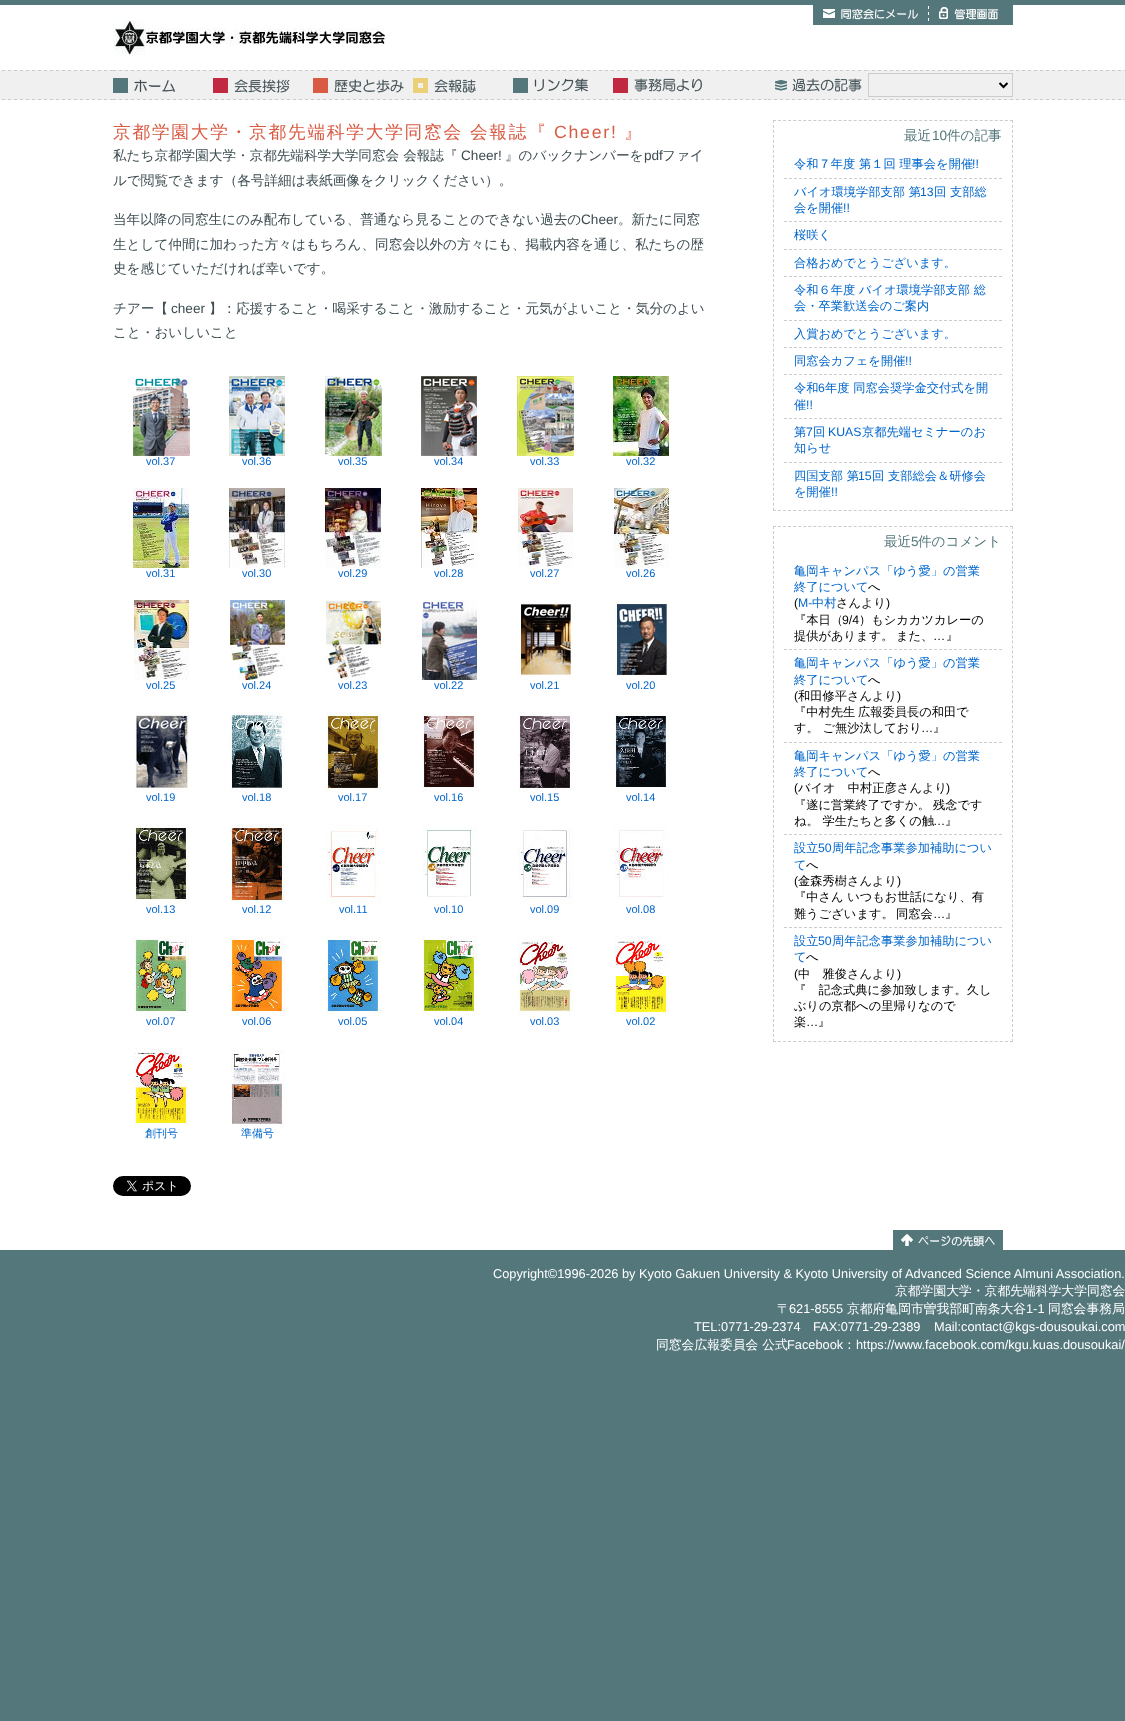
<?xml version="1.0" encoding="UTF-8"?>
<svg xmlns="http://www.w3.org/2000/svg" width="1125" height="1721">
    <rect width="100%" height="100%" fill="#54777B"/>
    <image x="0" y="0" width="1125" height="100" href="img_01.png"/>
    <image x="813" y="5" width="115" height="20" href="img_02.png"/>
    <image x="928" y="5" width="85" height="20" href="img_03.png"/>
    <image x="113" y="20" width="272" height="35" href="img_04.png"/>
    <image x="113" y="70" width="100" height="30" href="img_05.png"/>
    <image x="213" y="70" width="100" height="30" href="img_06.png"/>
    <image x="412" y="70" width="1" height="30" href="img_07.png"/>
    <image x="313" y="70" width="99" height="30" href="img_08.png"/>
    <image x="413" y="70" width="100" height="30" href="img_09.png"/>
    <image x="513" y="70" width="100" height="30" href="img_10.png"/>
    <image x="712" y="70" width="1" height="30" href="img_07.png"/>
    <image x="613" y="70" width="99" height="30" href="img_11.png"/>
    <image x="768" y="70" width="100" height="30" href="img_12.png"/>
    <rect x="868.5" y="73.5" width="144" height="23" fill="none" stroke="#CCCCCC"/>
    <path d="M 999.5 83 L 1003.5 87 L 1007.5 83" fill="none" stroke="#000000" stroke-width="2"/>
    <rect x="0" y="100" width="1125" height="1150" fill="#FFFFFF"/>
    <text x="113" y="138" font-family="WenQuanYi Zen Hei" font-size="17.7" font-weight="500" letter-spacing="1.75" fill="#D95B44">京都学園大学・京都先端科学大学同窓会 会報誌『</text>
    <text x="554" y="138" font-family="Liberation Sans" font-size="17.7" letter-spacing="1.75" fill="#D95B44">Cheer!</text>
    <text x="624" y="138" font-family="WenQuanYi Zen Hei" font-size="17.7" font-weight="500" letter-spacing="1.75" fill="#D95B44">』</text>
    <text x="113" y="160" font-family="WenQuanYi Zen Hei" font-size="13.6" font-weight="500" fill="#3C4C51">私たち京都学園大学・京都先端科学大学同窓会 会報誌『</text>
    <text x="461" y="160" font-family="Liberation Sans" font-size="13.6" fill="#3C4C51">Cheer!</text>
    <text x="505" y="160" font-family="WenQuanYi Zen Hei" font-size="13.6" font-weight="500" fill="#3C4C51">』のバックナンバーを</text>
    <text x="644" y="160" font-family="Liberation Sans" font-size="13.6" fill="#3C4C51">pdf</text>
    <text x="662" y="160" font-family="WenQuanYi Zen Hei" font-size="13.6" font-weight="500" fill="#3C4C51">ファイ</text>
    <text x="113" y="185" font-family="WenQuanYi Zen Hei" font-size="13.6" font-weight="500" fill="#3C4C51">ルで閲覧できます（各号詳細は表紙画像をクリックください）。</text>
    <text x="113" y="224" font-family="WenQuanYi Zen Hei" font-size="13.6" font-weight="500" fill="#3C4C51">当年以降の同窓生にのみ配布している、普通なら見ることのできない過去の</text>
    <text x="581" y="224" font-family="Liberation Sans" font-size="13.6" fill="#3C4C51">Cheer</text>
    <text x="618" y="224" font-family="WenQuanYi Zen Hei" font-size="13.6" font-weight="500" fill="#3C4C51">。新たに同窓</text>
    <text font-family="WenQuanYi Zen Hei" font-size="13.6" font-weight="500" fill="#3C4C51">
        <tspan x="113" y="249">生として仲間に加わった方々はもちろん、同窓会以外の方々にも、掲載内容を通じ、私たちの歴</tspan>
        <tspan x="113" y="273">史を感じていただければ幸いです。</tspan>
    </text>
    <text x="113" y="313" font-family="WenQuanYi Zen Hei" font-size="13.6" font-weight="500" fill="#3C4C51">チアー【</text>
    <text x="171" y="313" font-family="Liberation Sans" font-size="13.6" fill="#3C4C51">cheer</text>
    <text x="209" y="313" font-family="WenQuanYi Zen Hei" font-size="13.6" font-weight="500" fill="#3C4C51">】：応援すること・喝采すること・激励すること・元気がよいこと・気分のよい</text>
    <text x="113" y="337" font-family="WenQuanYi Zen Hei" font-size="13.6" font-weight="500" fill="#3C4C51">こと・おいしいこと</text>
    <image x="133" y="376" width="57" height="80" href="img_13.png"/>
    <text x="146" y="465" font-family="Liberation Sans" font-size="11" fill="#0066CC">vol.37</text>
    <image x="229" y="376" width="56" height="80" href="img_14.png"/>
    <text x="242" y="465" font-family="Liberation Sans" font-size="11" fill="#0066CC">vol.36</text>
    <image x="325" y="376" width="57" height="80" href="img_15.png"/>
    <text x="338" y="465" font-family="Liberation Sans" font-size="11" fill="#0066CC">vol.35</text>
    <image x="421" y="376" width="56" height="80" href="img_16.png"/>
    <text x="434" y="465" font-family="Liberation Sans" font-size="11" fill="#0066CC">vol.34</text>
    <image x="517" y="376" width="57" height="80" href="img_17.png"/>
    <text x="530" y="465" font-family="Liberation Sans" font-size="11" fill="#0066CC">vol.33</text>
    <image x="613" y="376" width="56" height="80" href="img_18.png"/>
    <text x="626" y="465" font-family="Liberation Sans" font-size="11" fill="#0066CC">vol.32</text>
    <image x="133" y="488" width="56" height="80" href="img_19.png"/>
    <text x="146" y="577" font-family="Liberation Sans" font-size="11" fill="#0066CC">vol.31</text>
    <image x="229" y="488" width="56" height="80" href="img_20.png"/>
    <text x="242" y="577" font-family="Liberation Sans" font-size="11" fill="#0066CC">vol.30</text>
    <image x="325" y="488" width="56" height="80" href="img_21.png"/>
    <text x="338" y="577" font-family="Liberation Sans" font-size="11" fill="#0066CC">vol.29</text>
    <image x="421" y="488" width="56" height="80" href="img_22.png"/>
    <text x="434" y="577" font-family="Liberation Sans" font-size="11" fill="#0066CC">vol.28</text>
    <image x="518" y="488" width="55" height="80" href="img_23.png"/>
    <text x="530" y="577" font-family="Liberation Sans" font-size="11" fill="#0066CC">vol.27</text>
    <image x="614" y="488" width="55" height="80" href="img_24.png"/>
    <text x="626" y="577" font-family="Liberation Sans" font-size="11" fill="#0066CC">vol.26</text>
    <image x="134" y="600" width="55" height="80" href="img_25.png"/>
    <text x="146" y="689" font-family="Liberation Sans" font-size="11" fill="#0066CC">vol.25</text>
    <image x="230" y="600" width="55" height="80" href="img_26.png"/>
    <text x="242" y="689" font-family="Liberation Sans" font-size="11" fill="#0066CC">vol.24</text>
    <image x="326" y="600" width="55" height="80" href="img_27.png"/>
    <text x="338" y="689" font-family="Liberation Sans" font-size="11" fill="#0066CC">vol.23</text>
    <image x="422" y="600" width="55" height="80" href="img_28.png"/>
    <text x="434" y="689" font-family="Liberation Sans" font-size="11" fill="#0066CC">vol.22</text>
    <image x="518" y="600" width="55" height="80" href="img_29.png"/>
    <text x="530" y="689" font-family="Liberation Sans" font-size="11" fill="#0066CC">vol.21</text>
    <image x="614" y="600" width="55" height="80" href="img_30.png"/>
    <text x="626" y="689" font-family="Liberation Sans" font-size="11" fill="#0066CC">vol.20</text>
    <image x="134" y="712" width="55" height="80" href="img_31.png"/>
    <text x="146" y="801" font-family="Liberation Sans" font-size="11" fill="#0066CC">vol.19</text>
    <image x="230" y="712" width="55" height="80" href="img_32.png"/>
    <text x="242" y="801" font-family="Liberation Sans" font-size="11" fill="#0066CC">vol.18</text>
    <image x="326" y="712" width="55" height="80" href="img_33.png"/>
    <text x="338" y="801" font-family="Liberation Sans" font-size="11" fill="#0066CC">vol.17</text>
    <image x="422" y="712" width="55" height="80" href="img_34.png"/>
    <text x="434" y="801" font-family="Liberation Sans" font-size="11" fill="#0066CC">vol.16</text>
    <image x="518" y="712" width="55" height="80" href="img_35.png"/>
    <text x="530" y="801" font-family="Liberation Sans" font-size="11" fill="#0066CC">vol.15</text>
    <image x="614" y="712" width="55" height="80" href="img_36.png"/>
    <text x="626" y="801" font-family="Liberation Sans" font-size="11" fill="#0066CC">vol.14</text>
    <image x="134" y="824" width="55" height="80" href="img_37.png"/>
    <text x="146" y="913" font-family="Liberation Sans" font-size="11" fill="#0066CC">vol.13</text>
    <image x="230" y="824" width="55" height="80" href="img_38.png"/>
    <text x="242" y="913" font-family="Liberation Sans" font-size="11" fill="#0066CC">vol.12</text>
    <image x="326" y="824" width="55" height="80" href="img_39.png"/>
    <text x="339" y="913" font-family="Liberation Sans" font-size="11" fill="#0066CC">vol.11</text>
    <image x="422" y="825" width="55" height="73" href="img_40.png"/>
    <text x="434" y="913" font-family="Liberation Sans" font-size="11" fill="#0066CC">vol.10</text>
    <image x="518" y="828" width="55" height="76" href="img_41.png"/>
    <text x="530" y="913" font-family="Liberation Sans" font-size="11" fill="#0066CC">vol.09</text>
    <image x="614" y="824" width="55" height="74" href="img_42.png"/>
    <text x="626" y="913" font-family="Liberation Sans" font-size="11" fill="#0066CC">vol.08</text>
    <image x="134" y="936" width="55" height="80" href="img_43.png"/>
    <text x="146" y="1025" font-family="Liberation Sans" font-size="11" fill="#0066CC">vol.07</text>
    <image x="230" y="936" width="55" height="80" href="img_44.png"/>
    <text x="242" y="1025" font-family="Liberation Sans" font-size="11" fill="#0066CC">vol.06</text>
    <image x="326" y="936" width="55" height="80" href="img_45.png"/>
    <text x="338" y="1025" font-family="Liberation Sans" font-size="11" fill="#0066CC">vol.05</text>
    <image x="422" y="936" width="55" height="80" href="img_46.png"/>
    <text x="434" y="1025" font-family="Liberation Sans" font-size="11" fill="#0066CC">vol.04</text>
    <image x="518" y="936" width="55" height="80" href="img_47.png"/>
    <text x="530" y="1025" font-family="Liberation Sans" font-size="11" fill="#0066CC">vol.03</text>
    <image x="614" y="936" width="55" height="80" href="img_48.png"/>
    <text x="626" y="1025" font-family="Liberation Sans" font-size="11" fill="#0066CC">vol.02</text>
    <image x="134" y="1048" width="55" height="80" href="img_49.png"/>
    <text x="145" y="1137" font-family="WenQuanYi Zen Hei" font-size="11" font-weight="500" fill="#0066CC">創刊号</text>
    <image x="230" y="1048" width="55" height="80" href="img_50.png"/>
    <text x="241" y="1137" font-family="WenQuanYi Zen Hei" font-size="11" font-weight="500" fill="#0066CC">準備号</text>
    <path d="M 773 120.5 H 1013" fill="none" stroke="#CCCCCC" stroke-dasharray="3 2.04"/>
    <path d="M 1012.5 120 V 511" fill="none" stroke="#CCCCCC" stroke-dasharray="3 1.97"/>
    <path d="M 773 510.5 H 1013" fill="none" stroke="#CCCCCC" stroke-dasharray="3 2.04"/>
    <path d="M 773.5 120 V 511" fill="none" stroke="#CCCCCC" stroke-dasharray="3 1.97"/>
    <text x="904" y="140" font-family="WenQuanYi Zen Hei" font-size="13.6" font-weight="500" fill="#54777B">最近</text>
    <text x="932" y="140" font-family="Liberation Sans" font-size="13.6" fill="#54777B">10</text>
    <text x="947" y="140" font-family="WenQuanYi Zen Hei" font-size="13.6" font-weight="500" fill="#54777B">件の記事</text>
    <path d="M 784 178.5 H 1002" fill="none" stroke="#CCCCCC" stroke-dasharray="3 2"/>
    <text x="794" y="168" font-family="WenQuanYi Zen Hei" font-size="12.25" font-weight="500" fill="#0066CC">令和７年度 第１回 理事会を開催</text>
    <text x="972" y="168" font-family="Liberation Sans" font-size="12.25" fill="#0066CC">!!</text>
    <path d="M 784 221.5 H 1002" fill="none" stroke="#CCCCCC" stroke-dasharray="3 2"/>
    <text x="794" y="196" font-family="WenQuanYi Zen Hei" font-size="12.25" font-weight="500" fill="#0066CC">バイオ環境学部支部 第</text>
    <text x="920" y="196" font-family="Liberation Sans" font-size="12.25" fill="#0066CC">13</text>
    <text x="934" y="196" font-family="WenQuanYi Zen Hei" font-size="12.25" font-weight="500" fill="#0066CC">回 支部総</text>
    <text x="794" y="212" font-family="WenQuanYi Zen Hei" font-size="12.25" font-weight="500" fill="#0066CC">会を開催</text>
    <text x="843" y="212" font-family="Liberation Sans" font-size="12.25" fill="#0066CC">!!</text>
    <path d="M 784 249.5 H 1002" fill="none" stroke="#CCCCCC" stroke-dasharray="3 2"/>
    <text x="794" y="239" font-family="WenQuanYi Zen Hei" font-size="12.25" font-weight="500" fill="#0066CC">桜咲く</text>
    <path d="M 784 276.5 H 1002" fill="none" stroke="#CCCCCC" stroke-dasharray="3 2"/>
    <text x="794" y="267" font-family="WenQuanYi Zen Hei" font-size="12.25" font-weight="500" fill="#0066CC">合格おめでとうございます。</text>
    <path d="M 784 320.5 H 1002" fill="none" stroke="#CCCCCC" stroke-dasharray="3 2"/>
    <text font-family="WenQuanYi Zen Hei" font-size="12.25" font-weight="500" fill="#0066CC">
        <tspan x="794" y="294">令和６年度 バイオ環境学部支部 総</tspan>
        <tspan x="794" y="310">会・卒業歓送会のご案内</tspan>
    </text>
    <path d="M 784 347.5 H 1002" fill="none" stroke="#CCCCCC" stroke-dasharray="3 2"/>
    <text x="794" y="338" font-family="WenQuanYi Zen Hei" font-size="12.25" font-weight="500" fill="#0066CC">入賞おめでとうございます。</text>
    <path d="M 784 374.5 H 1002" fill="none" stroke="#CCCCCC" stroke-dasharray="3 2"/>
    <text x="794" y="365" font-family="WenQuanYi Zen Hei" font-size="12.25" font-weight="500" fill="#0066CC">同窓会カフェを開催</text>
    <text x="905" y="365" font-family="Liberation Sans" font-size="12.25" fill="#0066CC">!!</text>
    <path d="M 784 418.5 H 1002" fill="none" stroke="#CCCCCC" stroke-dasharray="3 2"/>
    <text x="794" y="392" font-family="WenQuanYi Zen Hei" font-size="12.25" font-weight="500" fill="#0066CC">令和</text>
    <text x="818" y="392" font-family="Liberation Sans" font-size="12.25" fill="#0066CC">6</text>
    <text x="825" y="392" font-family="WenQuanYi Zen Hei" font-size="12.25" font-weight="500" fill="#0066CC">年度 同窓会奨学金交付式を開</text>
    <text x="794" y="409" font-family="WenQuanYi Zen Hei" font-size="12.25" font-weight="500" fill="#0066CC">催</text>
    <text x="806" y="409" font-family="Liberation Sans" font-size="12.25" fill="#0066CC">!!</text>
    <path d="M 784 462.5 H 1002" fill="none" stroke="#CCCCCC" stroke-dasharray="3 2"/>
    <text x="794" y="436" font-family="WenQuanYi Zen Hei" font-size="12.25" font-weight="500" fill="#0066CC">第</text>
    <text x="806" y="436" font-family="Liberation Sans" font-size="12.25" fill="#0066CC">7</text>
    <text x="813" y="436" font-family="WenQuanYi Zen Hei" font-size="12.25" font-weight="500" fill="#0066CC">回</text>
    <text x="828" y="436" font-family="Liberation Sans" font-size="12.25" fill="#0066CC">KUAS</text>
    <text x="862" y="436" font-family="WenQuanYi Zen Hei" font-size="12.25" font-weight="500" fill="#0066CC">京都先端セミナーのお</text>
    <text x="794" y="452" font-family="WenQuanYi Zen Hei" font-size="12.25" font-weight="500" fill="#0066CC">知らせ</text>
    <text x="794" y="480" font-family="WenQuanYi Zen Hei" font-size="12.25" font-weight="500" fill="#0066CC">四国支部 第</text>
    <text x="858" y="480" font-family="Liberation Sans" font-size="12.25" fill="#0066CC">15</text>
    <text x="872" y="480" font-family="WenQuanYi Zen Hei" font-size="12.25" font-weight="500" fill="#0066CC">回 支部総会＆研修会</text>
    <text x="794" y="496" font-family="WenQuanYi Zen Hei" font-size="12.25" font-weight="500" fill="#0066CC">を開催</text>
    <text x="831" y="496" font-family="Liberation Sans" font-size="12.25" fill="#0066CC">!!</text>
    <path d="M 773 526.5 H 1013" fill="none" stroke="#CCCCCC" stroke-dasharray="3 2.04"/>
    <path d="M 1012.5 526 V 1042" fill="none" stroke="#CCCCCC" stroke-dasharray="3 1.98"/>
    <path d="M 773 1041.5 H 1013" fill="none" stroke="#CCCCCC" stroke-dasharray="3 2.04"/>
    <path d="M 773.5 526 V 1042" fill="none" stroke="#CCCCCC" stroke-dasharray="3 1.98"/>
    <text x="884" y="546" font-family="WenQuanYi Zen Hei" font-size="13.6" font-weight="500" fill="#54777B">最近</text>
    <text x="911" y="546" font-family="Liberation Sans" font-size="13.6" fill="#54777B">5</text>
    <text x="918" y="546" font-family="WenQuanYi Zen Hei" font-size="13.6" font-weight="500" fill="#54777B">件のコメント</text>
    <path d="M 784 649.5 H 1002" fill="none" stroke="#CCCCCC" stroke-dasharray="3 2"/>
    <text font-family="WenQuanYi Zen Hei" font-size="12.25" font-weight="500" fill="#0066CC">
        <tspan x="794" y="575">亀岡キャンパス「ゆう愛」の営業</tspan>
        <tspan x="794" y="591">終了について</tspan>
    </text>
    <text x="868" y="591" font-family="WenQuanYi Zen Hei" font-size="12.25" font-weight="500" fill="#000000">へ</text>
    <text x="794" y="607" font-family="Liberation Sans" font-size="12.25" fill="#000000">(</text>
    <text x="798" y="607" font-family="Liberation Sans" font-size="12.25" fill="#0066CC">M-</text>
    <text x="812" y="607" font-family="WenQuanYi Zen Hei" font-size="12.25" font-weight="500" fill="#0066CC">中村</text>
    <text x="836" y="607" font-family="WenQuanYi Zen Hei" font-size="12.25" font-weight="500" fill="#000000">さんより</text>
    <text x="886" y="607" font-family="Liberation Sans" font-size="12.25" fill="#000000">)</text>
    <text x="794" y="624" font-family="WenQuanYi Zen Hei" font-size="12.25" font-weight="500" fill="#000000">『本日（</text>
    <text x="842" y="624" font-family="Liberation Sans" font-size="12.25" fill="#000000">9/4</text>
    <text x="859" y="624" font-family="WenQuanYi Zen Hei" font-size="12.25" font-weight="500" fill="#000000">）もシカカツカレーの</text>
    <text x="794" y="640" font-family="WenQuanYi Zen Hei" font-size="12.25" font-weight="500" fill="#000000">提供があります。</text>
    <text x="896" y="640" font-family="WenQuanYi Zen Hei" font-size="12.25" font-weight="500" fill="#000000">また、</text>
    <text x="933" y="640" font-family="Liberation Sans" font-size="12.25" fill="#000000">…</text>
    <text x="946" y="640" font-family="WenQuanYi Zen Hei" font-size="12.25" font-weight="500" fill="#000000">』</text>
    <path d="M 784 742.5 H 1002" fill="none" stroke="#CCCCCC" stroke-dasharray="3 2"/>
    <text font-family="WenQuanYi Zen Hei" font-size="12.25" font-weight="500" fill="#0066CC">
        <tspan x="794" y="667">亀岡キャンパス「ゆう愛」の営業</tspan>
        <tspan x="794" y="684">終了について</tspan>
    </text>
    <text x="868" y="684" font-family="WenQuanYi Zen Hei" font-size="12.25" font-weight="500" fill="#000000">へ</text>
    <text x="794" y="700" font-family="Liberation Sans" font-size="12.25" fill="#000000">(</text>
    <text x="798" y="700" font-family="WenQuanYi Zen Hei" font-size="12.25" font-weight="500" fill="#000000">和田修平さんより</text>
    <text x="897" y="700" font-family="Liberation Sans" font-size="12.25" fill="#000000">)</text>
    <text x="794" y="716" font-family="WenQuanYi Zen Hei" font-size="12.25" font-weight="500" fill="#000000">『中村先生</text>
    <text x="858" y="716" font-family="WenQuanYi Zen Hei" font-size="12.25" font-weight="500" fill="#000000">広報委員長の和田で</text>
    <text x="794" y="732" font-family="WenQuanYi Zen Hei" font-size="12.25" font-weight="500" fill="#000000">す。 ご無沙汰しており</text>
    <text x="921" y="732" font-family="Liberation Sans" font-size="12.25" fill="#000000">…</text>
    <text x="933" y="732" font-family="WenQuanYi Zen Hei" font-size="12.25" font-weight="500" fill="#000000">』</text>
    <path d="M 784 834.5 H 1002" fill="none" stroke="#CCCCCC" stroke-dasharray="3 2"/>
    <text font-family="WenQuanYi Zen Hei" font-size="12.25" font-weight="500" fill="#0066CC">
        <tspan x="794" y="760">亀岡キャンパス「ゆう愛」の営業</tspan>
        <tspan x="794" y="776">終了について</tspan>
    </text>
    <text x="868" y="776" font-family="WenQuanYi Zen Hei" font-size="12.25" font-weight="500" fill="#000000">へ</text>
    <text x="794" y="792" font-family="Liberation Sans" font-size="12.25" fill="#000000">(</text>
    <text x="798" y="792" font-family="WenQuanYi Zen Hei" font-size="12.25" font-weight="500" fill="#000000">バイオ　中村正彦さんより</text>
    <text x="946" y="792" font-family="Liberation Sans" font-size="12.25" fill="#000000">)</text>
    <text x="794" y="809" font-family="WenQuanYi Zen Hei" font-size="12.25" font-weight="500" fill="#000000">『遂に営業終了ですか。</text>
    <text x="933" y="809" font-family="WenQuanYi Zen Hei" font-size="12.25" font-weight="500" fill="#000000">残念です</text>
    <text x="794" y="825" font-family="WenQuanYi Zen Hei" font-size="12.25" font-weight="500" fill="#000000">ね。 学生たちと多くの触</text>
    <text x="933" y="825" font-family="Liberation Sans" font-size="12.25" fill="#000000">…</text>
    <text x="945" y="825" font-family="WenQuanYi Zen Hei" font-size="12.25" font-weight="500" fill="#000000">』</text>
    <path d="M 784 927.5 H 1002" fill="none" stroke="#CCCCCC" stroke-dasharray="3 2"/>
    <text x="794" y="852" font-family="WenQuanYi Zen Hei" font-size="12.25" font-weight="500" fill="#0066CC">設立</text>
    <text x="818" y="852" font-family="Liberation Sans" font-size="12.25" fill="#0066CC">50</text>
    <text x="832" y="852" font-family="WenQuanYi Zen Hei" font-size="12.25" font-weight="500" fill="#0066CC">周年記念事業参加補助につい</text>
    <text x="794" y="869" font-family="WenQuanYi Zen Hei" font-size="12.25" font-weight="500" fill="#0066CC">て</text>
    <text x="806" y="869" font-family="WenQuanYi Zen Hei" font-size="12.25" font-weight="500" fill="#000000">へ</text>
    <text x="794" y="885" font-family="Liberation Sans" font-size="12.25" fill="#000000">(</text>
    <text x="798" y="885" font-family="WenQuanYi Zen Hei" font-size="12.25" font-weight="500" fill="#000000">金森秀樹さんより</text>
    <text x="897" y="885" font-family="Liberation Sans" font-size="12.25" fill="#000000">)</text>
    <text font-family="WenQuanYi Zen Hei" font-size="12.25" font-weight="500" fill="#000000">
        <tspan x="794" y="901">『中さん いつもお世話になり、有</tspan>
        <tspan x="794" y="918">難うございます。</tspan>
    </text>
    <text x="896" y="918" font-family="WenQuanYi Zen Hei" font-size="12.25" font-weight="500" fill="#000000">同窓会</text>
    <text x="933" y="918" font-family="Liberation Sans" font-size="12.25" fill="#000000">…</text>
    <text x="945" y="918" font-family="WenQuanYi Zen Hei" font-size="12.25" font-weight="500" fill="#000000">』</text>
    <text x="794" y="945" font-family="WenQuanYi Zen Hei" font-size="12.25" font-weight="500" fill="#0066CC">設立</text>
    <text x="818" y="945" font-family="Liberation Sans" font-size="12.25" fill="#0066CC">50</text>
    <text x="832" y="945" font-family="WenQuanYi Zen Hei" font-size="12.25" font-weight="500" fill="#0066CC">周年記念事業参加補助につい</text>
    <text x="794" y="961" font-family="WenQuanYi Zen Hei" font-size="12.25" font-weight="500" fill="#0066CC">て</text>
    <text x="806" y="961" font-family="WenQuanYi Zen Hei" font-size="12.25" font-weight="500" fill="#000000">へ</text>
    <text x="794" y="978" font-family="Liberation Sans" font-size="12.25" fill="#000000">(</text>
    <text x="798" y="978" font-family="WenQuanYi Zen Hei" font-size="12.25" font-weight="500" fill="#000000">中　雅俊さんより</text>
    <text x="897" y="978" font-family="Liberation Sans" font-size="12.25" fill="#000000">)</text>
    <text font-family="WenQuanYi Zen Hei" font-size="12.25" font-weight="500" fill="#000000">
        <tspan x="794" y="994">『　記念式典に参加致します。久し</tspan>
        <tspan x="794" y="1010">ぶりの京都への里帰りなので</tspan>
        <tspan x="794" y="1026">楽</tspan>
    </text>
    <text x="806" y="1026" font-family="Liberation Sans" font-size="12.25" fill="#000000">…</text>
    <text x="818" y="1026" font-family="WenQuanYi Zen Hei" font-size="12.25" font-weight="500" fill="#000000">』</text>
    <image x="113" y="1176" width="78" height="20" href="img_51.png"/>
    <image x="893" y="1230" width="110" height="20" href="img_52.png"/>
    <text x="493" y="1278" font-family="Liberation Sans" font-size="12.8" fill="#FFFFFF">Copyright©1996-2026 by Kyoto Gakuen University &amp; Kyoto University of Advanced Science Almuni Association.</text>
    <text x="895" y="1295" font-family="WenQuanYi Zen Hei" font-size="12.8" font-weight="500" fill="#FFFFFF">京都学園大学・京都先端科学大学同窓会</text>
    <text x="777" y="1313" font-family="WenQuanYi Zen Hei" font-size="12.8" font-weight="500" fill="#FFFFFF">〒</text>
    <text x="789" y="1313" font-family="Liberation Sans" font-size="12.8" fill="#FFFFFF">621-8555</text>
    <text x="847" y="1313" font-family="WenQuanYi Zen Hei" font-size="12.8" font-weight="500" fill="#FFFFFF">京都府亀岡市曽我部町南条大谷</text>
    <text x="1026" y="1313" font-family="Liberation Sans" font-size="12.8" fill="#FFFFFF">1-1</text>
    <text x="1048" y="1313" font-family="WenQuanYi Zen Hei" font-size="12.8" font-weight="500" fill="#FFFFFF">同窓会事務局</text>
    <text x="694" y="1331" font-family="Liberation Sans" font-size="12.8" fill="#FFFFFF">TEL:0771-29-2374</text>
    <text x="813" y="1331" font-family="Liberation Sans" font-size="12.8" fill="#FFFFFF">FAX:0771-29-2389</text>
    <text x="934" y="1331" font-family="Liberation Sans" font-size="12.8" fill="#FFFFFF">Mail:contact@kgs-dousoukai.com</text>
    <text x="656" y="1349" font-family="WenQuanYi Zen Hei" font-size="12.8" font-weight="500" fill="#FFFFFF">同窓会広報委員会 公式</text>
    <text x="787" y="1349" font-family="Liberation Sans" font-size="12.8" fill="#FFFFFF">Facebook</text>
    <text x="843" y="1349" font-family="WenQuanYi Zen Hei" font-size="12.8" font-weight="500" fill="#FFFFFF">：</text>
    <text x="856" y="1349" font-family="Liberation Sans" font-size="12.8" fill="#FFFFFF">https://www.facebook.com/kgu.kuas.dousoukai/</text>
</svg>
